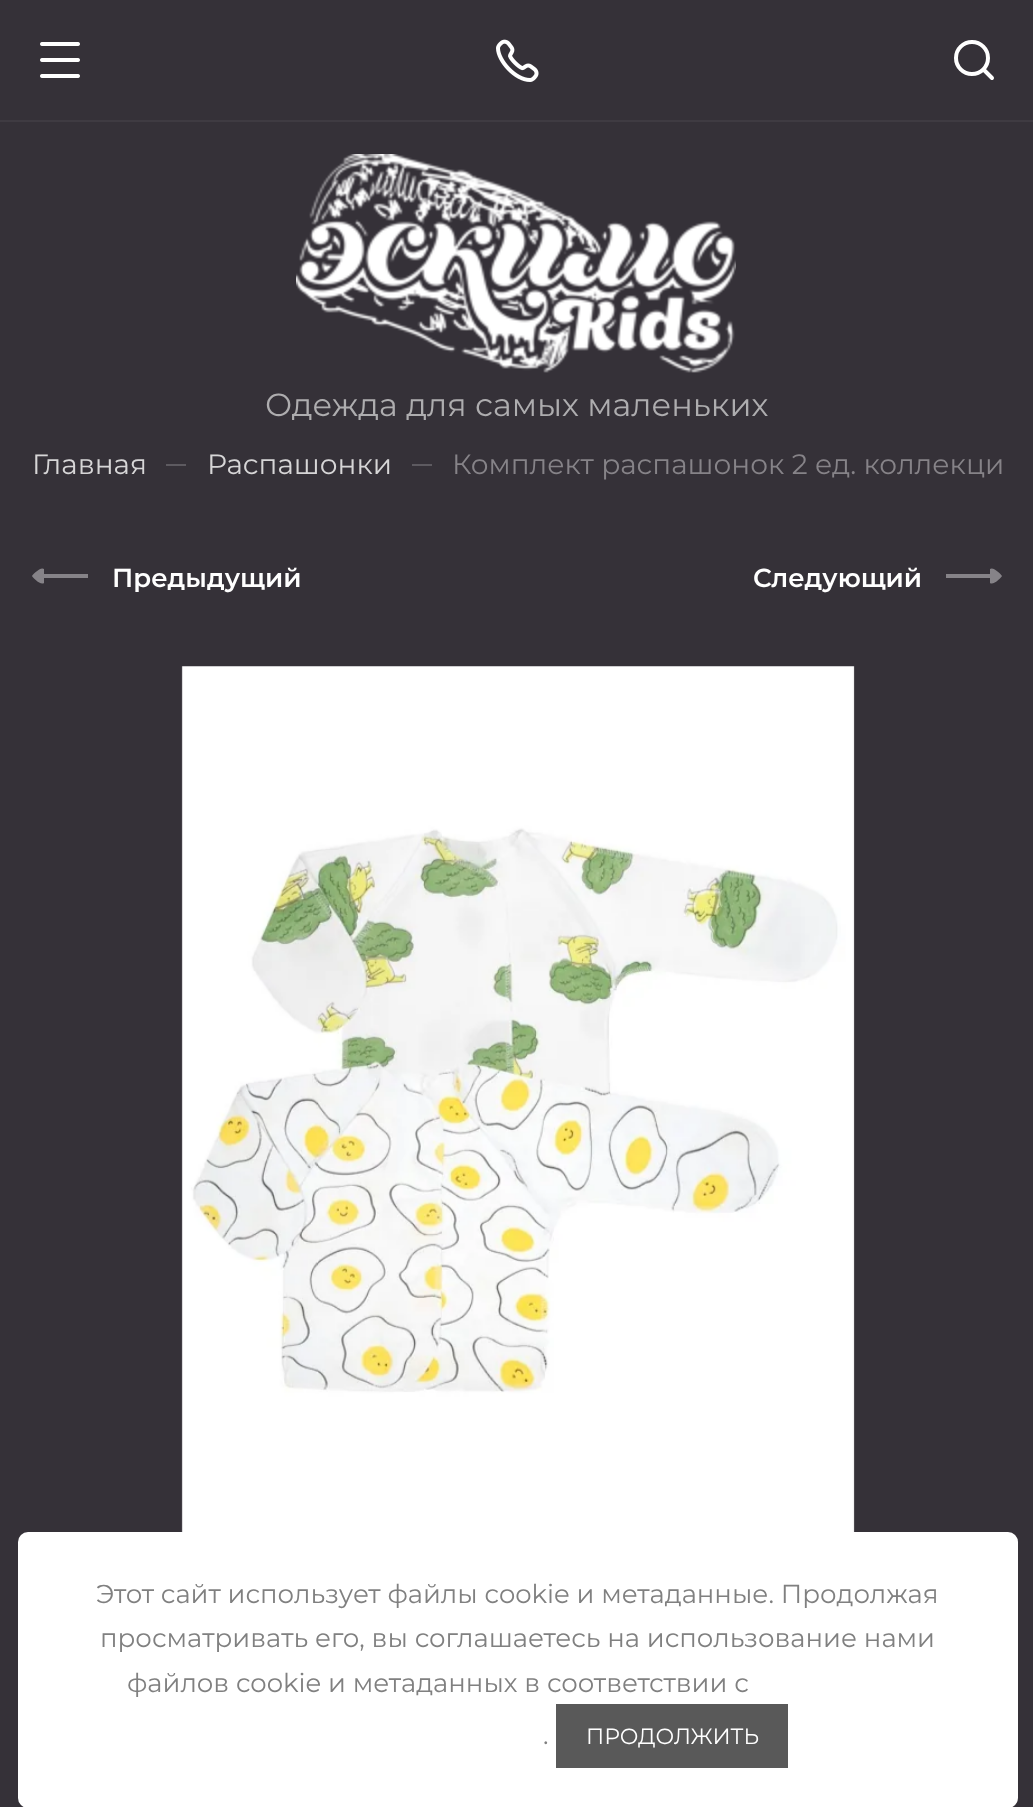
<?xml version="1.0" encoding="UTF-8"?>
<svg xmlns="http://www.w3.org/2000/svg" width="1033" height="1807">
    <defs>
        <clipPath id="clip1"><rect x="32" y="568" width="56" height="16"/></clipPath>
        <clipPath id="clip2"><rect x="946" y="568" width="56" height="16"/></clipPath>
    </defs>
    <rect width="100%" height="100%" fill="#353138"/>
    <rect x="0" y="120" width="1033" height="2" fill="#3F3B42"/>
    <image x="40" y="42" width="40" height="36" href="img_01.png"/>
    <image x="496" y="39" width="43" height="43" href="img_02.png"/>
    <circle cx="972" cy="58" r="16" fill="none" stroke="#FFFFFF" stroke-width="4"/>
    <path d="M 984 70 L 992 78" fill="none" stroke="#FFFFFF" stroke-width="4" stroke-linecap="round"/>
    <image x="296" y="154" width="440" height="219" href="img_03.png"/>
    <text x="265" y="416" font-family="Montserrat" font-size="32" fill="#AEADAF">Одежда для самых маленьких</text>
    <text x="32" y="474" font-family="Montserrat" font-size="28" fill="#D7D6D7">Главная</text>
    <rect x="166" y="464" width="20" height="2" fill="#5D5A60"/>
    <text x="207" y="474" font-family="Montserrat" font-size="28" fill="#D7D6D7">Распашонки</text>
    <rect x="412" y="464" width="20" height="2" fill="#5D5A60"/>
    <text x="452" y="474" font-family="Montserrat" font-size="28" fill="#868388">Комплект распашонок 2 ед. коллекци</text>
    <g clip-path="url(#clip1)">
        <path d="M 44 578 V 583 C 41 586 32 577 32 576 C 32 575 41 566 44 569 V 574 H 107 C 108 575 108 576 108 577 L 106 578 Z" fill="#868388" fill-rule="evenodd"/>
    </g>
    <text x="112" y="587" font-family="Montserrat" font-size="26" font-weight="600" fill="#FFFFFF">Предыдущий</text>
    <text x="753" y="587" font-family="Montserrat" font-size="26" font-weight="600" fill="#FFFFFF">Следующий</text>
    <g clip-path="url(#clip2)">
        <path d="M 990 578 V 583 C 993 586 1002 577 1002 576 C 1002 575 993 566 990 569 V 574 H 927 C 926 575 926 576 926 577 L 928 578 Z" fill="#868388" fill-rule="evenodd"/>
    </g>
    <image x="181" y="666" width="674" height="866" href="img_04.png"/>
    <rect x="18" y="1532" width="1000" height="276" rx="10" fill="#FFFFFF"/>
    <text x="96" y="1603" font-family="Montserrat" font-size="26" fill="#808080">Этот сайт использует файлы cookie и метаданные. Продолжая</text>
    <text x="100" y="1647" font-family="Montserrat" font-size="26" fill="#808080">просматривать его, вы соглашаетесь на использование нами</text>
    <text x="127" y="1692" font-family="Montserrat" font-size="26" fill="#808080">файлов cookie и метаданных в соответствии с</text>
    <text x="543" y="1744" font-family="Montserrat" font-size="26" fill="#808080">.</text>
    <rect x="556" y="1704" width="232" height="64" fill="#595959"/>
    <text x="586" y="1744" font-family="Montserrat" font-size="22" fill="#FFFFFF">ПРОДОЛЖИТЬ</text>
</svg>
